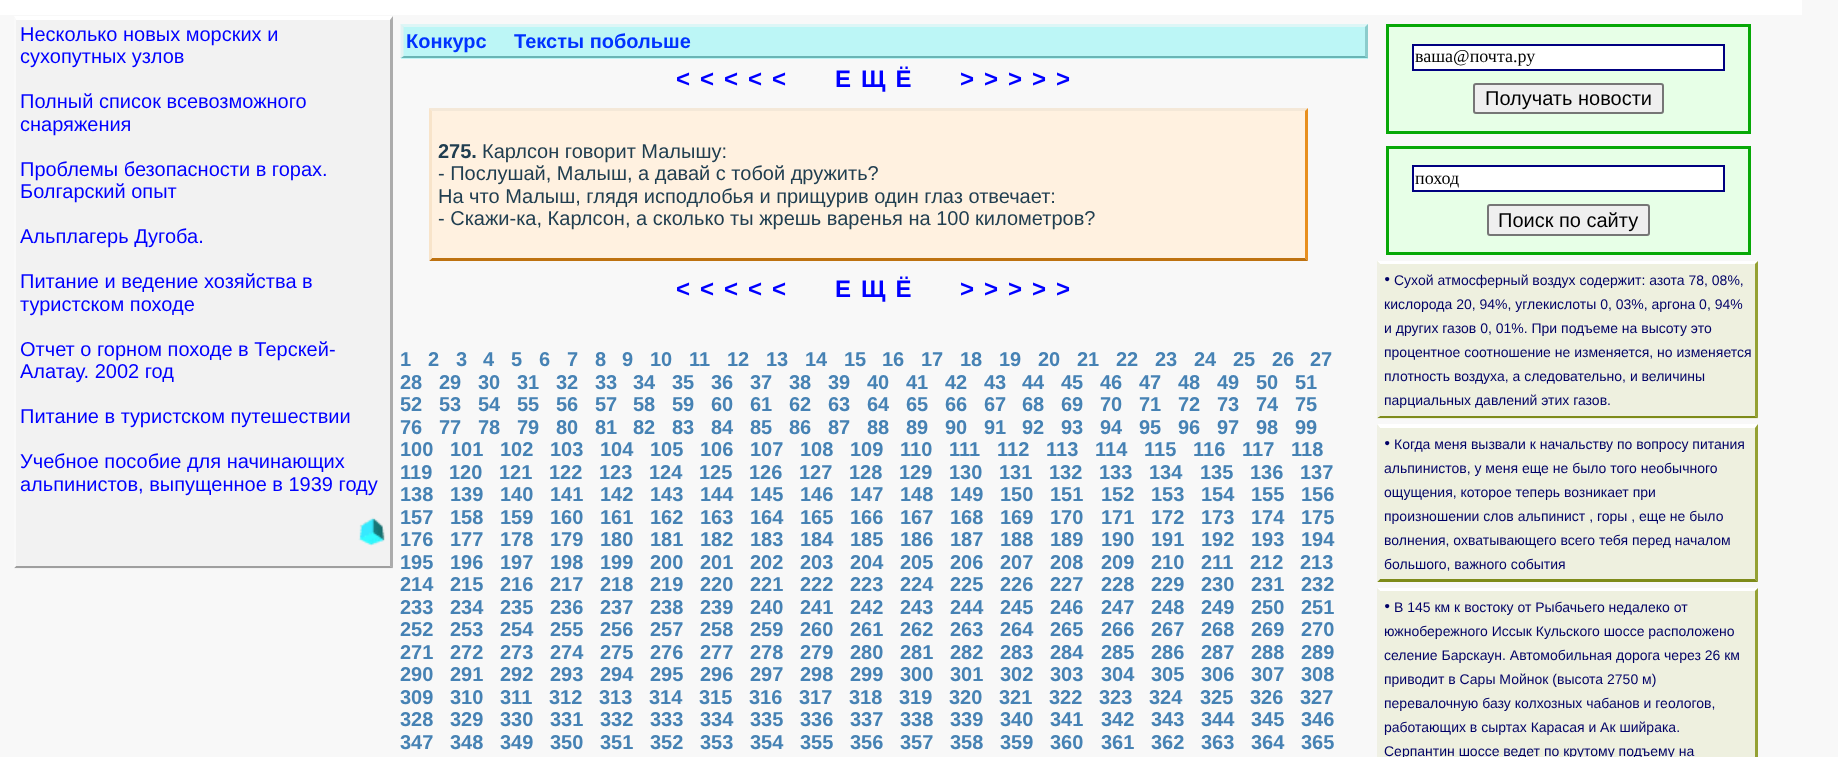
<?xml version="1.0" encoding="UTF-8"?>
<svg xmlns="http://www.w3.org/2000/svg" width="1838" height="757">
    <rect width="100%" height="100%" fill="#F8F8F8"/>
    <rect x="0" y="0" width="1802" height="15" fill="#FFFFFF"/>
    <rect x="14" y="17" width="379" height="552" fill="#F2F2F2"/>
    <path d="M 14 16 H 393 L 390 20 H 16 Z" fill="#FFFFFF"/>
    <path d="M 393 16 V 568 L 390 566 V 20 Z" fill="#ACACAC"/>
    <path d="M 393 568 H 14 L 16 566 H 390 Z" fill="#9F9F9F"/>
    <path d="M 14 568 V 16 L 16 20 V 566 Z" fill="#FAFAFA"/>
    <text font-family="Liberation Sans" font-size="20" fill="#0000FF">
        <tspan x="20" y="41">Несколько новых морских и</tspan>
        <tspan x="20" y="63">сухопутных узлов</tspan>
    </text>
    <text font-family="Liberation Sans" font-size="20" fill="#0000FF">
        <tspan x="20" y="108">Полный список всевозможного</tspan>
        <tspan x="20" y="131">снаряжения</tspan>
    </text>
    <text font-family="Liberation Sans" font-size="20" fill="#0000FF">
        <tspan x="20" y="176">Проблемы безопасности в горах.</tspan>
        <tspan x="20" y="198">Болгарский опыт</tspan>
    </text>
    <text x="20" y="243" font-family="Liberation Sans" font-size="20" fill="#0000FF">Альплагерь Дугоба.</text>
    <text font-family="Liberation Sans" font-size="20" fill="#0000FF">
        <tspan x="20" y="288">Питание и ведение хозяйства в</tspan>
        <tspan x="20" y="311">туристском походе</tspan>
    </text>
    <text font-family="Liberation Sans" font-size="20" fill="#0000FF">
        <tspan x="20" y="356">Отчет о горном походе в Терскей-</tspan>
        <tspan x="20" y="378">Алатау. 2002 год</tspan>
    </text>
    <text x="20" y="423" font-family="Liberation Sans" font-size="20" fill="#0000FF">Питание в туристском путешествии</text>
    <text font-family="Liberation Sans" font-size="20" fill="#0000FF">
        <tspan x="20" y="468">Учебное пособие для начинающих</tspan>
        <tspan x="20" y="491">альпинистов, выпущенное в 1939 году</tspan>
    </text>
    <image x="358" y="517" width="27" height="29" href="img_01.png"/>
    <rect x="401" y="24" width="967" height="35" fill="#BCF6F6"/>
    <path d="M 400 24 H 1368 L 1365 27 H 404 Z" fill="#DDF6F6"/>
    <path d="M 1368 24 V 58.5 L 1365 55.5 V 27 Z" fill="#8CCCCC"/>
    <path d="M 1368 58 H 400 L 404 56 H 1365 Z" fill="#69B5B5"/>
    <path d="M 400.5 58.5 V 24 L 403.5 27 V 55.5 Z" fill="#E3F2F2"/>
    <text x="406" y="48" font-family="Liberation Sans" font-size="20" font-weight="700" fill="#0033FF">Конкурс</text>
    <text x="514" y="48" font-family="Liberation Sans" font-size="20" font-weight="700" fill="#0033FF">Тексты побольше</text>
    <text x="676" y="87" font-family="Liberation Sans" font-size="24" font-weight="700" letter-spacing="10" fill="#0000FF">&lt;&lt;&lt;&lt;&lt;</text>
    <text x="835" y="87" font-family="Liberation Sans" font-size="24" font-weight="700" letter-spacing="10" fill="#0000FF">ЕЩЁ</text>
    <text x="960" y="87" font-family="Liberation Sans" font-size="24" font-weight="700" letter-spacing="10" fill="#0000FF">&gt;&gt;&gt;&gt;&gt;</text>
    <rect x="429" y="108" width="879" height="153" fill="#FFF1E0"/>
    <path d="M 429 108 H 1308 L 1305 111 H 432 Z" fill="#F4E8D8"/>
    <path d="M 1308 108 V 261 L 1305 258 V 111 Z" fill="#E88F1E"/>
    <path d="M 1308 261 H 429 L 432 258 H 1305 Z" fill="#BE7210"/>
    <path d="M 429 261 V 108 L 432 111 V 258 Z" fill="#F8E4CA"/>
    <text x="438" y="158" font-family="Liberation Sans" font-size="20" font-weight="700" fill="#203E50">275.</text>
    <text x="482" y="158" font-family="Liberation Sans" font-size="20" fill="#203E50">Карлсон говорит Малышу:</text>
    <text font-family="Liberation Sans" font-size="20" fill="#203E50">
        <tspan x="438" y="180">- Послушай, Малыш, а давай с тобой дружить?</tspan>
        <tspan x="438" y="203">На что Малыш, глядя исподлобья и прищурив один глаз отвечает:</tspan>
        <tspan x="438" y="225">- Скажи-ка, Карлсон, а сколько ты жрешь варенья на 100 километров?</tspan>
    </text>
    <text x="676" y="297" font-family="Liberation Sans" font-size="24" font-weight="700" letter-spacing="10" fill="#0000FF">&lt;&lt;&lt;&lt;&lt;</text>
    <text x="835" y="297" font-family="Liberation Sans" font-size="24" font-weight="700" letter-spacing="10" fill="#0000FF">ЕЩЁ</text>
    <text x="960" y="297" font-family="Liberation Sans" font-size="24" font-weight="700" letter-spacing="10" fill="#0000FF">&gt;&gt;&gt;&gt;&gt;</text>
    <text x="400" y="366" font-family="Liberation Sans" font-size="20" font-weight="700" fill="#4682B4">1</text>
    <text x="428" y="366" font-family="Liberation Sans" font-size="20" font-weight="700" fill="#4682B4">2</text>
    <text x="456" y="366" font-family="Liberation Sans" font-size="20" font-weight="700" fill="#4682B4">3</text>
    <text x="483" y="366" font-family="Liberation Sans" font-size="20" font-weight="700" fill="#4682B4">4</text>
    <text x="511" y="366" font-family="Liberation Sans" font-size="20" font-weight="700" fill="#4682B4">5</text>
    <text x="539" y="366" font-family="Liberation Sans" font-size="20" font-weight="700" fill="#4682B4">6</text>
    <text x="567" y="366" font-family="Liberation Sans" font-size="20" font-weight="700" fill="#4682B4">7</text>
    <text x="595" y="366" font-family="Liberation Sans" font-size="20" font-weight="700" fill="#4682B4">8</text>
    <text x="622" y="366" font-family="Liberation Sans" font-size="20" font-weight="700" fill="#4682B4">9</text>
    <text x="650" y="366" font-family="Liberation Sans" font-size="20" font-weight="700" fill="#4682B4">10</text>
    <text x="689" y="366" font-family="Liberation Sans" font-size="20" font-weight="700" fill="#4682B4">11</text>
    <text x="727" y="366" font-family="Liberation Sans" font-size="20" font-weight="700" fill="#4682B4">12</text>
    <text x="766" y="366" font-family="Liberation Sans" font-size="20" font-weight="700" fill="#4682B4">13</text>
    <text x="805" y="366" font-family="Liberation Sans" font-size="20" font-weight="700" fill="#4682B4">14</text>
    <text x="844" y="366" font-family="Liberation Sans" font-size="20" font-weight="700" fill="#4682B4">15</text>
    <text x="882" y="366" font-family="Liberation Sans" font-size="20" font-weight="700" fill="#4682B4">16</text>
    <text x="921" y="366" font-family="Liberation Sans" font-size="20" font-weight="700" fill="#4682B4">17</text>
    <text x="960" y="366" font-family="Liberation Sans" font-size="20" font-weight="700" fill="#4682B4">18</text>
    <text x="999" y="366" font-family="Liberation Sans" font-size="20" font-weight="700" fill="#4682B4">19</text>
    <text x="1038" y="366" font-family="Liberation Sans" font-size="20" font-weight="700" fill="#4682B4">20</text>
    <text x="1077" y="366" font-family="Liberation Sans" font-size="20" font-weight="700" fill="#4682B4">21</text>
    <text x="1116" y="366" font-family="Liberation Sans" font-size="20" font-weight="700" fill="#4682B4">22</text>
    <text x="1155" y="366" font-family="Liberation Sans" font-size="20" font-weight="700" fill="#4682B4">23</text>
    <text x="1194" y="366" font-family="Liberation Sans" font-size="20" font-weight="700" fill="#4682B4">24</text>
    <text x="1233" y="366" font-family="Liberation Sans" font-size="20" font-weight="700" fill="#4682B4">25</text>
    <text x="1272" y="366" font-family="Liberation Sans" font-size="20" font-weight="700" fill="#4682B4">26</text>
    <text x="1310" y="366" font-family="Liberation Sans" font-size="20" font-weight="700" fill="#4682B4">27</text>
    <text x="400" y="389" font-family="Liberation Sans" font-size="20" font-weight="700" fill="#4682B4">28</text>
    <text x="439" y="389" font-family="Liberation Sans" font-size="20" font-weight="700" fill="#4682B4">29</text>
    <text x="478" y="389" font-family="Liberation Sans" font-size="20" font-weight="700" fill="#4682B4">30</text>
    <text x="517" y="389" font-family="Liberation Sans" font-size="20" font-weight="700" fill="#4682B4">31</text>
    <text x="556" y="389" font-family="Liberation Sans" font-size="20" font-weight="700" fill="#4682B4">32</text>
    <text x="595" y="389" font-family="Liberation Sans" font-size="20" font-weight="700" fill="#4682B4">33</text>
    <text x="633" y="389" font-family="Liberation Sans" font-size="20" font-weight="700" fill="#4682B4">34</text>
    <text x="672" y="389" font-family="Liberation Sans" font-size="20" font-weight="700" fill="#4682B4">35</text>
    <text x="711" y="389" font-family="Liberation Sans" font-size="20" font-weight="700" fill="#4682B4">36</text>
    <text x="750" y="389" font-family="Liberation Sans" font-size="20" font-weight="700" fill="#4682B4">37</text>
    <text x="789" y="389" font-family="Liberation Sans" font-size="20" font-weight="700" fill="#4682B4">38</text>
    <text x="828" y="389" font-family="Liberation Sans" font-size="20" font-weight="700" fill="#4682B4">39</text>
    <text x="867" y="389" font-family="Liberation Sans" font-size="20" font-weight="700" fill="#4682B4">40</text>
    <text x="906" y="389" font-family="Liberation Sans" font-size="20" font-weight="700" fill="#4682B4">41</text>
    <text x="945" y="389" font-family="Liberation Sans" font-size="20" font-weight="700" fill="#4682B4">42</text>
    <text x="984" y="389" font-family="Liberation Sans" font-size="20" font-weight="700" fill="#4682B4">43</text>
    <text x="1022" y="389" font-family="Liberation Sans" font-size="20" font-weight="700" fill="#4682B4">44</text>
    <text x="1061" y="389" font-family="Liberation Sans" font-size="20" font-weight="700" fill="#4682B4">45</text>
    <text x="1100" y="389" font-family="Liberation Sans" font-size="20" font-weight="700" fill="#4682B4">46</text>
    <text x="1139" y="389" font-family="Liberation Sans" font-size="20" font-weight="700" fill="#4682B4">47</text>
    <text x="1178" y="389" font-family="Liberation Sans" font-size="20" font-weight="700" fill="#4682B4">48</text>
    <text x="1217" y="389" font-family="Liberation Sans" font-size="20" font-weight="700" fill="#4682B4">49</text>
    <text x="1256" y="389" font-family="Liberation Sans" font-size="20" font-weight="700" fill="#4682B4">50</text>
    <text x="1295" y="389" font-family="Liberation Sans" font-size="20" font-weight="700" fill="#4682B4">51</text>
    <text x="400" y="411" font-family="Liberation Sans" font-size="20" font-weight="700" fill="#4682B4">52</text>
    <text x="439" y="411" font-family="Liberation Sans" font-size="20" font-weight="700" fill="#4682B4">53</text>
    <text x="478" y="411" font-family="Liberation Sans" font-size="20" font-weight="700" fill="#4682B4">54</text>
    <text x="517" y="411" font-family="Liberation Sans" font-size="20" font-weight="700" fill="#4682B4">55</text>
    <text x="556" y="411" font-family="Liberation Sans" font-size="20" font-weight="700" fill="#4682B4">56</text>
    <text x="595" y="411" font-family="Liberation Sans" font-size="20" font-weight="700" fill="#4682B4">57</text>
    <text x="633" y="411" font-family="Liberation Sans" font-size="20" font-weight="700" fill="#4682B4">58</text>
    <text x="672" y="411" font-family="Liberation Sans" font-size="20" font-weight="700" fill="#4682B4">59</text>
    <text x="711" y="411" font-family="Liberation Sans" font-size="20" font-weight="700" fill="#4682B4">60</text>
    <text x="750" y="411" font-family="Liberation Sans" font-size="20" font-weight="700" fill="#4682B4">61</text>
    <text x="789" y="411" font-family="Liberation Sans" font-size="20" font-weight="700" fill="#4682B4">62</text>
    <text x="828" y="411" font-family="Liberation Sans" font-size="20" font-weight="700" fill="#4682B4">63</text>
    <text x="867" y="411" font-family="Liberation Sans" font-size="20" font-weight="700" fill="#4682B4">64</text>
    <text x="906" y="411" font-family="Liberation Sans" font-size="20" font-weight="700" fill="#4682B4">65</text>
    <text x="945" y="411" font-family="Liberation Sans" font-size="20" font-weight="700" fill="#4682B4">66</text>
    <text x="984" y="411" font-family="Liberation Sans" font-size="20" font-weight="700" fill="#4682B4">67</text>
    <text x="1022" y="411" font-family="Liberation Sans" font-size="20" font-weight="700" fill="#4682B4">68</text>
    <text x="1061" y="411" font-family="Liberation Sans" font-size="20" font-weight="700" fill="#4682B4">69</text>
    <text x="1100" y="411" font-family="Liberation Sans" font-size="20" font-weight="700" fill="#4682B4">70</text>
    <text x="1139" y="411" font-family="Liberation Sans" font-size="20" font-weight="700" fill="#4682B4">71</text>
    <text x="1178" y="411" font-family="Liberation Sans" font-size="20" font-weight="700" fill="#4682B4">72</text>
    <text x="1217" y="411" font-family="Liberation Sans" font-size="20" font-weight="700" fill="#4682B4">73</text>
    <text x="1256" y="411" font-family="Liberation Sans" font-size="20" font-weight="700" fill="#4682B4">74</text>
    <text x="1295" y="411" font-family="Liberation Sans" font-size="20" font-weight="700" fill="#4682B4">75</text>
    <text x="400" y="434" font-family="Liberation Sans" font-size="20" font-weight="700" fill="#4682B4">76</text>
    <text x="439" y="434" font-family="Liberation Sans" font-size="20" font-weight="700" fill="#4682B4">77</text>
    <text x="478" y="434" font-family="Liberation Sans" font-size="20" font-weight="700" fill="#4682B4">78</text>
    <text x="517" y="434" font-family="Liberation Sans" font-size="20" font-weight="700" fill="#4682B4">79</text>
    <text x="556" y="434" font-family="Liberation Sans" font-size="20" font-weight="700" fill="#4682B4">80</text>
    <text x="595" y="434" font-family="Liberation Sans" font-size="20" font-weight="700" fill="#4682B4">81</text>
    <text x="633" y="434" font-family="Liberation Sans" font-size="20" font-weight="700" fill="#4682B4">82</text>
    <text x="672" y="434" font-family="Liberation Sans" font-size="20" font-weight="700" fill="#4682B4">83</text>
    <text x="711" y="434" font-family="Liberation Sans" font-size="20" font-weight="700" fill="#4682B4">84</text>
    <text x="750" y="434" font-family="Liberation Sans" font-size="20" font-weight="700" fill="#4682B4">85</text>
    <text x="789" y="434" font-family="Liberation Sans" font-size="20" font-weight="700" fill="#4682B4">86</text>
    <text x="828" y="434" font-family="Liberation Sans" font-size="20" font-weight="700" fill="#4682B4">87</text>
    <text x="867" y="434" font-family="Liberation Sans" font-size="20" font-weight="700" fill="#4682B4">88</text>
    <text x="906" y="434" font-family="Liberation Sans" font-size="20" font-weight="700" fill="#4682B4">89</text>
    <text x="945" y="434" font-family="Liberation Sans" font-size="20" font-weight="700" fill="#4682B4">90</text>
    <text x="984" y="434" font-family="Liberation Sans" font-size="20" font-weight="700" fill="#4682B4">91</text>
    <text x="1022" y="434" font-family="Liberation Sans" font-size="20" font-weight="700" fill="#4682B4">92</text>
    <text x="1061" y="434" font-family="Liberation Sans" font-size="20" font-weight="700" fill="#4682B4">93</text>
    <text x="1100" y="434" font-family="Liberation Sans" font-size="20" font-weight="700" fill="#4682B4">94</text>
    <text x="1139" y="434" font-family="Liberation Sans" font-size="20" font-weight="700" fill="#4682B4">95</text>
    <text x="1178" y="434" font-family="Liberation Sans" font-size="20" font-weight="700" fill="#4682B4">96</text>
    <text x="1217" y="434" font-family="Liberation Sans" font-size="20" font-weight="700" fill="#4682B4">97</text>
    <text x="1256" y="434" font-family="Liberation Sans" font-size="20" font-weight="700" fill="#4682B4">98</text>
    <text x="1295" y="434" font-family="Liberation Sans" font-size="20" font-weight="700" fill="#4682B4">99</text>
    <text x="400" y="456" font-family="Liberation Sans" font-size="20" font-weight="700" fill="#4682B4">100</text>
    <text x="450" y="456" font-family="Liberation Sans" font-size="20" font-weight="700" fill="#4682B4">101</text>
    <text x="500" y="456" font-family="Liberation Sans" font-size="20" font-weight="700" fill="#4682B4">102</text>
    <text x="550" y="456" font-family="Liberation Sans" font-size="20" font-weight="700" fill="#4682B4">103</text>
    <text x="600" y="456" font-family="Liberation Sans" font-size="20" font-weight="700" fill="#4682B4">104</text>
    <text x="650" y="456" font-family="Liberation Sans" font-size="20" font-weight="700" fill="#4682B4">105</text>
    <text x="700" y="456" font-family="Liberation Sans" font-size="20" font-weight="700" fill="#4682B4">106</text>
    <text x="750" y="456" font-family="Liberation Sans" font-size="20" font-weight="700" fill="#4682B4">107</text>
    <text x="800" y="456" font-family="Liberation Sans" font-size="20" font-weight="700" fill="#4682B4">108</text>
    <text x="850" y="456" font-family="Liberation Sans" font-size="20" font-weight="700" fill="#4682B4">109</text>
    <text x="900" y="456" font-family="Liberation Sans" font-size="20" font-weight="700" fill="#4682B4">110</text>
    <text x="949" y="456" font-family="Liberation Sans" font-size="20" font-weight="700" fill="#4682B4">111</text>
    <text x="997" y="456" font-family="Liberation Sans" font-size="20" font-weight="700" fill="#4682B4">112</text>
    <text x="1046" y="456" font-family="Liberation Sans" font-size="20" font-weight="700" fill="#4682B4">113</text>
    <text x="1095" y="456" font-family="Liberation Sans" font-size="20" font-weight="700" fill="#4682B4">114</text>
    <text x="1144" y="456" font-family="Liberation Sans" font-size="20" font-weight="700" fill="#4682B4">115</text>
    <text x="1193" y="456" font-family="Liberation Sans" font-size="20" font-weight="700" fill="#4682B4">116</text>
    <text x="1242" y="456" font-family="Liberation Sans" font-size="20" font-weight="700" fill="#4682B4">117</text>
    <text x="1291" y="456" font-family="Liberation Sans" font-size="20" font-weight="700" fill="#4682B4">118</text>
    <text x="400" y="479" font-family="Liberation Sans" font-size="20" font-weight="700" fill="#4682B4">119</text>
    <text x="449" y="479" font-family="Liberation Sans" font-size="20" font-weight="700" fill="#4682B4">120</text>
    <text x="499" y="479" font-family="Liberation Sans" font-size="20" font-weight="700" fill="#4682B4">121</text>
    <text x="549" y="479" font-family="Liberation Sans" font-size="20" font-weight="700" fill="#4682B4">122</text>
    <text x="599" y="479" font-family="Liberation Sans" font-size="20" font-weight="700" fill="#4682B4">123</text>
    <text x="649" y="479" font-family="Liberation Sans" font-size="20" font-weight="700" fill="#4682B4">124</text>
    <text x="699" y="479" font-family="Liberation Sans" font-size="20" font-weight="700" fill="#4682B4">125</text>
    <text x="749" y="479" font-family="Liberation Sans" font-size="20" font-weight="700" fill="#4682B4">126</text>
    <text x="799" y="479" font-family="Liberation Sans" font-size="20" font-weight="700" fill="#4682B4">127</text>
    <text x="849" y="479" font-family="Liberation Sans" font-size="20" font-weight="700" fill="#4682B4">128</text>
    <text x="899" y="479" font-family="Liberation Sans" font-size="20" font-weight="700" fill="#4682B4">129</text>
    <text x="949" y="479" font-family="Liberation Sans" font-size="20" font-weight="700" fill="#4682B4">130</text>
    <text x="999" y="479" font-family="Liberation Sans" font-size="20" font-weight="700" fill="#4682B4">131</text>
    <text x="1049" y="479" font-family="Liberation Sans" font-size="20" font-weight="700" fill="#4682B4">132</text>
    <text x="1099" y="479" font-family="Liberation Sans" font-size="20" font-weight="700" fill="#4682B4">133</text>
    <text x="1149" y="479" font-family="Liberation Sans" font-size="20" font-weight="700" fill="#4682B4">134</text>
    <text x="1200" y="479" font-family="Liberation Sans" font-size="20" font-weight="700" fill="#4682B4">135</text>
    <text x="1250" y="479" font-family="Liberation Sans" font-size="20" font-weight="700" fill="#4682B4">136</text>
    <text x="1300" y="479" font-family="Liberation Sans" font-size="20" font-weight="700" fill="#4682B4">137</text>
    <text x="400" y="501" font-family="Liberation Sans" font-size="20" font-weight="700" fill="#4682B4">138</text>
    <text x="450" y="501" font-family="Liberation Sans" font-size="20" font-weight="700" fill="#4682B4">139</text>
    <text x="500" y="501" font-family="Liberation Sans" font-size="20" font-weight="700" fill="#4682B4">140</text>
    <text x="550" y="501" font-family="Liberation Sans" font-size="20" font-weight="700" fill="#4682B4">141</text>
    <text x="600" y="501" font-family="Liberation Sans" font-size="20" font-weight="700" fill="#4682B4">142</text>
    <text x="650" y="501" font-family="Liberation Sans" font-size="20" font-weight="700" fill="#4682B4">143</text>
    <text x="700" y="501" font-family="Liberation Sans" font-size="20" font-weight="700" fill="#4682B4">144</text>
    <text x="750" y="501" font-family="Liberation Sans" font-size="20" font-weight="700" fill="#4682B4">145</text>
    <text x="800" y="501" font-family="Liberation Sans" font-size="20" font-weight="700" fill="#4682B4">146</text>
    <text x="850" y="501" font-family="Liberation Sans" font-size="20" font-weight="700" fill="#4682B4">147</text>
    <text x="900" y="501" font-family="Liberation Sans" font-size="20" font-weight="700" fill="#4682B4">148</text>
    <text x="950" y="501" font-family="Liberation Sans" font-size="20" font-weight="700" fill="#4682B4">149</text>
    <text x="1000" y="501" font-family="Liberation Sans" font-size="20" font-weight="700" fill="#4682B4">150</text>
    <text x="1050" y="501" font-family="Liberation Sans" font-size="20" font-weight="700" fill="#4682B4">151</text>
    <text x="1101" y="501" font-family="Liberation Sans" font-size="20" font-weight="700" fill="#4682B4">152</text>
    <text x="1151" y="501" font-family="Liberation Sans" font-size="20" font-weight="700" fill="#4682B4">153</text>
    <text x="1201" y="501" font-family="Liberation Sans" font-size="20" font-weight="700" fill="#4682B4">154</text>
    <text x="1251" y="501" font-family="Liberation Sans" font-size="20" font-weight="700" fill="#4682B4">155</text>
    <text x="1301" y="501" font-family="Liberation Sans" font-size="20" font-weight="700" fill="#4682B4">156</text>
    <text x="400" y="524" font-family="Liberation Sans" font-size="20" font-weight="700" fill="#4682B4">157</text>
    <text x="450" y="524" font-family="Liberation Sans" font-size="20" font-weight="700" fill="#4682B4">158</text>
    <text x="500" y="524" font-family="Liberation Sans" font-size="20" font-weight="700" fill="#4682B4">159</text>
    <text x="550" y="524" font-family="Liberation Sans" font-size="20" font-weight="700" fill="#4682B4">160</text>
    <text x="600" y="524" font-family="Liberation Sans" font-size="20" font-weight="700" fill="#4682B4">161</text>
    <text x="650" y="524" font-family="Liberation Sans" font-size="20" font-weight="700" fill="#4682B4">162</text>
    <text x="700" y="524" font-family="Liberation Sans" font-size="20" font-weight="700" fill="#4682B4">163</text>
    <text x="750" y="524" font-family="Liberation Sans" font-size="20" font-weight="700" fill="#4682B4">164</text>
    <text x="800" y="524" font-family="Liberation Sans" font-size="20" font-weight="700" fill="#4682B4">165</text>
    <text x="850" y="524" font-family="Liberation Sans" font-size="20" font-weight="700" fill="#4682B4">166</text>
    <text x="900" y="524" font-family="Liberation Sans" font-size="20" font-weight="700" fill="#4682B4">167</text>
    <text x="950" y="524" font-family="Liberation Sans" font-size="20" font-weight="700" fill="#4682B4">168</text>
    <text x="1000" y="524" font-family="Liberation Sans" font-size="20" font-weight="700" fill="#4682B4">169</text>
    <text x="1050" y="524" font-family="Liberation Sans" font-size="20" font-weight="700" fill="#4682B4">170</text>
    <text x="1101" y="524" font-family="Liberation Sans" font-size="20" font-weight="700" fill="#4682B4">171</text>
    <text x="1151" y="524" font-family="Liberation Sans" font-size="20" font-weight="700" fill="#4682B4">172</text>
    <text x="1201" y="524" font-family="Liberation Sans" font-size="20" font-weight="700" fill="#4682B4">173</text>
    <text x="1251" y="524" font-family="Liberation Sans" font-size="20" font-weight="700" fill="#4682B4">174</text>
    <text x="1301" y="524" font-family="Liberation Sans" font-size="20" font-weight="700" fill="#4682B4">175</text>
    <text x="400" y="546" font-family="Liberation Sans" font-size="20" font-weight="700" fill="#4682B4">176</text>
    <text x="450" y="546" font-family="Liberation Sans" font-size="20" font-weight="700" fill="#4682B4">177</text>
    <text x="500" y="546" font-family="Liberation Sans" font-size="20" font-weight="700" fill="#4682B4">178</text>
    <text x="550" y="546" font-family="Liberation Sans" font-size="20" font-weight="700" fill="#4682B4">179</text>
    <text x="600" y="546" font-family="Liberation Sans" font-size="20" font-weight="700" fill="#4682B4">180</text>
    <text x="650" y="546" font-family="Liberation Sans" font-size="20" font-weight="700" fill="#4682B4">181</text>
    <text x="700" y="546" font-family="Liberation Sans" font-size="20" font-weight="700" fill="#4682B4">182</text>
    <text x="750" y="546" font-family="Liberation Sans" font-size="20" font-weight="700" fill="#4682B4">183</text>
    <text x="800" y="546" font-family="Liberation Sans" font-size="20" font-weight="700" fill="#4682B4">184</text>
    <text x="850" y="546" font-family="Liberation Sans" font-size="20" font-weight="700" fill="#4682B4">185</text>
    <text x="900" y="546" font-family="Liberation Sans" font-size="20" font-weight="700" fill="#4682B4">186</text>
    <text x="950" y="546" font-family="Liberation Sans" font-size="20" font-weight="700" fill="#4682B4">187</text>
    <text x="1000" y="546" font-family="Liberation Sans" font-size="20" font-weight="700" fill="#4682B4">188</text>
    <text x="1050" y="546" font-family="Liberation Sans" font-size="20" font-weight="700" fill="#4682B4">189</text>
    <text x="1101" y="546" font-family="Liberation Sans" font-size="20" font-weight="700" fill="#4682B4">190</text>
    <text x="1151" y="546" font-family="Liberation Sans" font-size="20" font-weight="700" fill="#4682B4">191</text>
    <text x="1201" y="546" font-family="Liberation Sans" font-size="20" font-weight="700" fill="#4682B4">192</text>
    <text x="1251" y="546" font-family="Liberation Sans" font-size="20" font-weight="700" fill="#4682B4">193</text>
    <text x="1301" y="546" font-family="Liberation Sans" font-size="20" font-weight="700" fill="#4682B4">194</text>
    <text x="400" y="569" font-family="Liberation Sans" font-size="20" font-weight="700" fill="#4682B4">195</text>
    <text x="450" y="569" font-family="Liberation Sans" font-size="20" font-weight="700" fill="#4682B4">196</text>
    <text x="500" y="569" font-family="Liberation Sans" font-size="20" font-weight="700" fill="#4682B4">197</text>
    <text x="550" y="569" font-family="Liberation Sans" font-size="20" font-weight="700" fill="#4682B4">198</text>
    <text x="600" y="569" font-family="Liberation Sans" font-size="20" font-weight="700" fill="#4682B4">199</text>
    <text x="650" y="569" font-family="Liberation Sans" font-size="20" font-weight="700" fill="#4682B4">200</text>
    <text x="700" y="569" font-family="Liberation Sans" font-size="20" font-weight="700" fill="#4682B4">201</text>
    <text x="750" y="569" font-family="Liberation Sans" font-size="20" font-weight="700" fill="#4682B4">202</text>
    <text x="800" y="569" font-family="Liberation Sans" font-size="20" font-weight="700" fill="#4682B4">203</text>
    <text x="850" y="569" font-family="Liberation Sans" font-size="20" font-weight="700" fill="#4682B4">204</text>
    <text x="900" y="569" font-family="Liberation Sans" font-size="20" font-weight="700" fill="#4682B4">205</text>
    <text x="950" y="569" font-family="Liberation Sans" font-size="20" font-weight="700" fill="#4682B4">206</text>
    <text x="1000" y="569" font-family="Liberation Sans" font-size="20" font-weight="700" fill="#4682B4">207</text>
    <text x="1050" y="569" font-family="Liberation Sans" font-size="20" font-weight="700" fill="#4682B4">208</text>
    <text x="1101" y="569" font-family="Liberation Sans" font-size="20" font-weight="700" fill="#4682B4">209</text>
    <text x="1151" y="569" font-family="Liberation Sans" font-size="20" font-weight="700" fill="#4682B4">210</text>
    <text x="1201" y="569" font-family="Liberation Sans" font-size="20" font-weight="700" fill="#4682B4">211</text>
    <text x="1250" y="569" font-family="Liberation Sans" font-size="20" font-weight="700" fill="#4682B4">212</text>
    <text x="1300" y="569" font-family="Liberation Sans" font-size="20" font-weight="700" fill="#4682B4">213</text>
    <text x="400" y="591" font-family="Liberation Sans" font-size="20" font-weight="700" fill="#4682B4">214</text>
    <text x="450" y="591" font-family="Liberation Sans" font-size="20" font-weight="700" fill="#4682B4">215</text>
    <text x="500" y="591" font-family="Liberation Sans" font-size="20" font-weight="700" fill="#4682B4">216</text>
    <text x="550" y="591" font-family="Liberation Sans" font-size="20" font-weight="700" fill="#4682B4">217</text>
    <text x="600" y="591" font-family="Liberation Sans" font-size="20" font-weight="700" fill="#4682B4">218</text>
    <text x="650" y="591" font-family="Liberation Sans" font-size="20" font-weight="700" fill="#4682B4">219</text>
    <text x="700" y="591" font-family="Liberation Sans" font-size="20" font-weight="700" fill="#4682B4">220</text>
    <text x="750" y="591" font-family="Liberation Sans" font-size="20" font-weight="700" fill="#4682B4">221</text>
    <text x="800" y="591" font-family="Liberation Sans" font-size="20" font-weight="700" fill="#4682B4">222</text>
    <text x="850" y="591" font-family="Liberation Sans" font-size="20" font-weight="700" fill="#4682B4">223</text>
    <text x="900" y="591" font-family="Liberation Sans" font-size="20" font-weight="700" fill="#4682B4">224</text>
    <text x="950" y="591" font-family="Liberation Sans" font-size="20" font-weight="700" fill="#4682B4">225</text>
    <text x="1000" y="591" font-family="Liberation Sans" font-size="20" font-weight="700" fill="#4682B4">226</text>
    <text x="1050" y="591" font-family="Liberation Sans" font-size="20" font-weight="700" fill="#4682B4">227</text>
    <text x="1101" y="591" font-family="Liberation Sans" font-size="20" font-weight="700" fill="#4682B4">228</text>
    <text x="1151" y="591" font-family="Liberation Sans" font-size="20" font-weight="700" fill="#4682B4">229</text>
    <text x="1201" y="591" font-family="Liberation Sans" font-size="20" font-weight="700" fill="#4682B4">230</text>
    <text x="1251" y="591" font-family="Liberation Sans" font-size="20" font-weight="700" fill="#4682B4">231</text>
    <text x="1301" y="591" font-family="Liberation Sans" font-size="20" font-weight="700" fill="#4682B4">232</text>
    <text x="400" y="614" font-family="Liberation Sans" font-size="20" font-weight="700" fill="#4682B4">233</text>
    <text x="450" y="614" font-family="Liberation Sans" font-size="20" font-weight="700" fill="#4682B4">234</text>
    <text x="500" y="614" font-family="Liberation Sans" font-size="20" font-weight="700" fill="#4682B4">235</text>
    <text x="550" y="614" font-family="Liberation Sans" font-size="20" font-weight="700" fill="#4682B4">236</text>
    <text x="600" y="614" font-family="Liberation Sans" font-size="20" font-weight="700" fill="#4682B4">237</text>
    <text x="650" y="614" font-family="Liberation Sans" font-size="20" font-weight="700" fill="#4682B4">238</text>
    <text x="700" y="614" font-family="Liberation Sans" font-size="20" font-weight="700" fill="#4682B4">239</text>
    <text x="750" y="614" font-family="Liberation Sans" font-size="20" font-weight="700" fill="#4682B4">240</text>
    <text x="800" y="614" font-family="Liberation Sans" font-size="20" font-weight="700" fill="#4682B4">241</text>
    <text x="850" y="614" font-family="Liberation Sans" font-size="20" font-weight="700" fill="#4682B4">242</text>
    <text x="900" y="614" font-family="Liberation Sans" font-size="20" font-weight="700" fill="#4682B4">243</text>
    <text x="950" y="614" font-family="Liberation Sans" font-size="20" font-weight="700" fill="#4682B4">244</text>
    <text x="1000" y="614" font-family="Liberation Sans" font-size="20" font-weight="700" fill="#4682B4">245</text>
    <text x="1050" y="614" font-family="Liberation Sans" font-size="20" font-weight="700" fill="#4682B4">246</text>
    <text x="1101" y="614" font-family="Liberation Sans" font-size="20" font-weight="700" fill="#4682B4">247</text>
    <text x="1151" y="614" font-family="Liberation Sans" font-size="20" font-weight="700" fill="#4682B4">248</text>
    <text x="1201" y="614" font-family="Liberation Sans" font-size="20" font-weight="700" fill="#4682B4">249</text>
    <text x="1251" y="614" font-family="Liberation Sans" font-size="20" font-weight="700" fill="#4682B4">250</text>
    <text x="1301" y="614" font-family="Liberation Sans" font-size="20" font-weight="700" fill="#4682B4">251</text>
    <text x="400" y="636" font-family="Liberation Sans" font-size="20" font-weight="700" fill="#4682B4">252</text>
    <text x="450" y="636" font-family="Liberation Sans" font-size="20" font-weight="700" fill="#4682B4">253</text>
    <text x="500" y="636" font-family="Liberation Sans" font-size="20" font-weight="700" fill="#4682B4">254</text>
    <text x="550" y="636" font-family="Liberation Sans" font-size="20" font-weight="700" fill="#4682B4">255</text>
    <text x="600" y="636" font-family="Liberation Sans" font-size="20" font-weight="700" fill="#4682B4">256</text>
    <text x="650" y="636" font-family="Liberation Sans" font-size="20" font-weight="700" fill="#4682B4">257</text>
    <text x="700" y="636" font-family="Liberation Sans" font-size="20" font-weight="700" fill="#4682B4">258</text>
    <text x="750" y="636" font-family="Liberation Sans" font-size="20" font-weight="700" fill="#4682B4">259</text>
    <text x="800" y="636" font-family="Liberation Sans" font-size="20" font-weight="700" fill="#4682B4">260</text>
    <text x="850" y="636" font-family="Liberation Sans" font-size="20" font-weight="700" fill="#4682B4">261</text>
    <text x="900" y="636" font-family="Liberation Sans" font-size="20" font-weight="700" fill="#4682B4">262</text>
    <text x="950" y="636" font-family="Liberation Sans" font-size="20" font-weight="700" fill="#4682B4">263</text>
    <text x="1000" y="636" font-family="Liberation Sans" font-size="20" font-weight="700" fill="#4682B4">264</text>
    <text x="1050" y="636" font-family="Liberation Sans" font-size="20" font-weight="700" fill="#4682B4">265</text>
    <text x="1101" y="636" font-family="Liberation Sans" font-size="20" font-weight="700" fill="#4682B4">266</text>
    <text x="1151" y="636" font-family="Liberation Sans" font-size="20" font-weight="700" fill="#4682B4">267</text>
    <text x="1201" y="636" font-family="Liberation Sans" font-size="20" font-weight="700" fill="#4682B4">268</text>
    <text x="1251" y="636" font-family="Liberation Sans" font-size="20" font-weight="700" fill="#4682B4">269</text>
    <text x="1301" y="636" font-family="Liberation Sans" font-size="20" font-weight="700" fill="#4682B4">270</text>
    <text x="400" y="659" font-family="Liberation Sans" font-size="20" font-weight="700" fill="#4682B4">271</text>
    <text x="450" y="659" font-family="Liberation Sans" font-size="20" font-weight="700" fill="#4682B4">272</text>
    <text x="500" y="659" font-family="Liberation Sans" font-size="20" font-weight="700" fill="#4682B4">273</text>
    <text x="550" y="659" font-family="Liberation Sans" font-size="20" font-weight="700" fill="#4682B4">274</text>
    <text x="600" y="659" font-family="Liberation Sans" font-size="20" font-weight="700" fill="#4682B4">275</text>
    <text x="650" y="659" font-family="Liberation Sans" font-size="20" font-weight="700" fill="#4682B4">276</text>
    <text x="700" y="659" font-family="Liberation Sans" font-size="20" font-weight="700" fill="#4682B4">277</text>
    <text x="750" y="659" font-family="Liberation Sans" font-size="20" font-weight="700" fill="#4682B4">278</text>
    <text x="800" y="659" font-family="Liberation Sans" font-size="20" font-weight="700" fill="#4682B4">279</text>
    <text x="850" y="659" font-family="Liberation Sans" font-size="20" font-weight="700" fill="#4682B4">280</text>
    <text x="900" y="659" font-family="Liberation Sans" font-size="20" font-weight="700" fill="#4682B4">281</text>
    <text x="950" y="659" font-family="Liberation Sans" font-size="20" font-weight="700" fill="#4682B4">282</text>
    <text x="1000" y="659" font-family="Liberation Sans" font-size="20" font-weight="700" fill="#4682B4">283</text>
    <text x="1050" y="659" font-family="Liberation Sans" font-size="20" font-weight="700" fill="#4682B4">284</text>
    <text x="1101" y="659" font-family="Liberation Sans" font-size="20" font-weight="700" fill="#4682B4">285</text>
    <text x="1151" y="659" font-family="Liberation Sans" font-size="20" font-weight="700" fill="#4682B4">286</text>
    <text x="1201" y="659" font-family="Liberation Sans" font-size="20" font-weight="700" fill="#4682B4">287</text>
    <text x="1251" y="659" font-family="Liberation Sans" font-size="20" font-weight="700" fill="#4682B4">288</text>
    <text x="1301" y="659" font-family="Liberation Sans" font-size="20" font-weight="700" fill="#4682B4">289</text>
    <text x="400" y="681" font-family="Liberation Sans" font-size="20" font-weight="700" fill="#4682B4">290</text>
    <text x="450" y="681" font-family="Liberation Sans" font-size="20" font-weight="700" fill="#4682B4">291</text>
    <text x="500" y="681" font-family="Liberation Sans" font-size="20" font-weight="700" fill="#4682B4">292</text>
    <text x="550" y="681" font-family="Liberation Sans" font-size="20" font-weight="700" fill="#4682B4">293</text>
    <text x="600" y="681" font-family="Liberation Sans" font-size="20" font-weight="700" fill="#4682B4">294</text>
    <text x="650" y="681" font-family="Liberation Sans" font-size="20" font-weight="700" fill="#4682B4">295</text>
    <text x="700" y="681" font-family="Liberation Sans" font-size="20" font-weight="700" fill="#4682B4">296</text>
    <text x="750" y="681" font-family="Liberation Sans" font-size="20" font-weight="700" fill="#4682B4">297</text>
    <text x="800" y="681" font-family="Liberation Sans" font-size="20" font-weight="700" fill="#4682B4">298</text>
    <text x="850" y="681" font-family="Liberation Sans" font-size="20" font-weight="700" fill="#4682B4">299</text>
    <text x="900" y="681" font-family="Liberation Sans" font-size="20" font-weight="700" fill="#4682B4">300</text>
    <text x="950" y="681" font-family="Liberation Sans" font-size="20" font-weight="700" fill="#4682B4">301</text>
    <text x="1000" y="681" font-family="Liberation Sans" font-size="20" font-weight="700" fill="#4682B4">302</text>
    <text x="1050" y="681" font-family="Liberation Sans" font-size="20" font-weight="700" fill="#4682B4">303</text>
    <text x="1101" y="681" font-family="Liberation Sans" font-size="20" font-weight="700" fill="#4682B4">304</text>
    <text x="1151" y="681" font-family="Liberation Sans" font-size="20" font-weight="700" fill="#4682B4">305</text>
    <text x="1201" y="681" font-family="Liberation Sans" font-size="20" font-weight="700" fill="#4682B4">306</text>
    <text x="1251" y="681" font-family="Liberation Sans" font-size="20" font-weight="700" fill="#4682B4">307</text>
    <text x="1301" y="681" font-family="Liberation Sans" font-size="20" font-weight="700" fill="#4682B4">308</text>
    <text x="400" y="704" font-family="Liberation Sans" font-size="20" font-weight="700" fill="#4682B4">309</text>
    <text x="450" y="704" font-family="Liberation Sans" font-size="20" font-weight="700" fill="#4682B4">310</text>
    <text x="500" y="704" font-family="Liberation Sans" font-size="20" font-weight="700" fill="#4682B4">311</text>
    <text x="549" y="704" font-family="Liberation Sans" font-size="20" font-weight="700" fill="#4682B4">312</text>
    <text x="599" y="704" font-family="Liberation Sans" font-size="20" font-weight="700" fill="#4682B4">313</text>
    <text x="649" y="704" font-family="Liberation Sans" font-size="20" font-weight="700" fill="#4682B4">314</text>
    <text x="699" y="704" font-family="Liberation Sans" font-size="20" font-weight="700" fill="#4682B4">315</text>
    <text x="749" y="704" font-family="Liberation Sans" font-size="20" font-weight="700" fill="#4682B4">316</text>
    <text x="799" y="704" font-family="Liberation Sans" font-size="20" font-weight="700" fill="#4682B4">317</text>
    <text x="849" y="704" font-family="Liberation Sans" font-size="20" font-weight="700" fill="#4682B4">318</text>
    <text x="899" y="704" font-family="Liberation Sans" font-size="20" font-weight="700" fill="#4682B4">319</text>
    <text x="949" y="704" font-family="Liberation Sans" font-size="20" font-weight="700" fill="#4682B4">320</text>
    <text x="999" y="704" font-family="Liberation Sans" font-size="20" font-weight="700" fill="#4682B4">321</text>
    <text x="1049" y="704" font-family="Liberation Sans" font-size="20" font-weight="700" fill="#4682B4">322</text>
    <text x="1099" y="704" font-family="Liberation Sans" font-size="20" font-weight="700" fill="#4682B4">323</text>
    <text x="1149" y="704" font-family="Liberation Sans" font-size="20" font-weight="700" fill="#4682B4">324</text>
    <text x="1200" y="704" font-family="Liberation Sans" font-size="20" font-weight="700" fill="#4682B4">325</text>
    <text x="1250" y="704" font-family="Liberation Sans" font-size="20" font-weight="700" fill="#4682B4">326</text>
    <text x="1300" y="704" font-family="Liberation Sans" font-size="20" font-weight="700" fill="#4682B4">327</text>
    <text x="400" y="726" font-family="Liberation Sans" font-size="20" font-weight="700" fill="#4682B4">328</text>
    <text x="450" y="726" font-family="Liberation Sans" font-size="20" font-weight="700" fill="#4682B4">329</text>
    <text x="500" y="726" font-family="Liberation Sans" font-size="20" font-weight="700" fill="#4682B4">330</text>
    <text x="550" y="726" font-family="Liberation Sans" font-size="20" font-weight="700" fill="#4682B4">331</text>
    <text x="600" y="726" font-family="Liberation Sans" font-size="20" font-weight="700" fill="#4682B4">332</text>
    <text x="650" y="726" font-family="Liberation Sans" font-size="20" font-weight="700" fill="#4682B4">333</text>
    <text x="700" y="726" font-family="Liberation Sans" font-size="20" font-weight="700" fill="#4682B4">334</text>
    <text x="750" y="726" font-family="Liberation Sans" font-size="20" font-weight="700" fill="#4682B4">335</text>
    <text x="800" y="726" font-family="Liberation Sans" font-size="20" font-weight="700" fill="#4682B4">336</text>
    <text x="850" y="726" font-family="Liberation Sans" font-size="20" font-weight="700" fill="#4682B4">337</text>
    <text x="900" y="726" font-family="Liberation Sans" font-size="20" font-weight="700" fill="#4682B4">338</text>
    <text x="950" y="726" font-family="Liberation Sans" font-size="20" font-weight="700" fill="#4682B4">339</text>
    <text x="1000" y="726" font-family="Liberation Sans" font-size="20" font-weight="700" fill="#4682B4">340</text>
    <text x="1050" y="726" font-family="Liberation Sans" font-size="20" font-weight="700" fill="#4682B4">341</text>
    <text x="1101" y="726" font-family="Liberation Sans" font-size="20" font-weight="700" fill="#4682B4">342</text>
    <text x="1151" y="726" font-family="Liberation Sans" font-size="20" font-weight="700" fill="#4682B4">343</text>
    <text x="1201" y="726" font-family="Liberation Sans" font-size="20" font-weight="700" fill="#4682B4">344</text>
    <text x="1251" y="726" font-family="Liberation Sans" font-size="20" font-weight="700" fill="#4682B4">345</text>
    <text x="1301" y="726" font-family="Liberation Sans" font-size="20" font-weight="700" fill="#4682B4">346</text>
    <text x="400" y="749" font-family="Liberation Sans" font-size="20" font-weight="700" fill="#4682B4">347</text>
    <text x="450" y="749" font-family="Liberation Sans" font-size="20" font-weight="700" fill="#4682B4">348</text>
    <text x="500" y="749" font-family="Liberation Sans" font-size="20" font-weight="700" fill="#4682B4">349</text>
    <text x="550" y="749" font-family="Liberation Sans" font-size="20" font-weight="700" fill="#4682B4">350</text>
    <text x="600" y="749" font-family="Liberation Sans" font-size="20" font-weight="700" fill="#4682B4">351</text>
    <text x="650" y="749" font-family="Liberation Sans" font-size="20" font-weight="700" fill="#4682B4">352</text>
    <text x="700" y="749" font-family="Liberation Sans" font-size="20" font-weight="700" fill="#4682B4">353</text>
    <text x="750" y="749" font-family="Liberation Sans" font-size="20" font-weight="700" fill="#4682B4">354</text>
    <text x="800" y="749" font-family="Liberation Sans" font-size="20" font-weight="700" fill="#4682B4">355</text>
    <text x="850" y="749" font-family="Liberation Sans" font-size="20" font-weight="700" fill="#4682B4">356</text>
    <text x="900" y="749" font-family="Liberation Sans" font-size="20" font-weight="700" fill="#4682B4">357</text>
    <text x="950" y="749" font-family="Liberation Sans" font-size="20" font-weight="700" fill="#4682B4">358</text>
    <text x="1000" y="749" font-family="Liberation Sans" font-size="20" font-weight="700" fill="#4682B4">359</text>
    <text x="1050" y="749" font-family="Liberation Sans" font-size="20" font-weight="700" fill="#4682B4">360</text>
    <text x="1101" y="749" font-family="Liberation Sans" font-size="20" font-weight="700" fill="#4682B4">361</text>
    <text x="1151" y="749" font-family="Liberation Sans" font-size="20" font-weight="700" fill="#4682B4">362</text>
    <text x="1201" y="749" font-family="Liberation Sans" font-size="20" font-weight="700" fill="#4682B4">363</text>
    <text x="1251" y="749" font-family="Liberation Sans" font-size="20" font-weight="700" fill="#4682B4">364</text>
    <text x="1301" y="749" font-family="Liberation Sans" font-size="20" font-weight="700" fill="#4682B4">365</text>
    <rect x="1387.5" y="25.5" width="362" height="107" fill="#E7FFE7" stroke="#07A807" stroke-width="3"/>
    <rect x="1413" y="45" width="311" height="25" fill="#FFFFFF" stroke="#000080" stroke-width="2"/>
    <text x="1415" y="62" font-family="Liberation Serif" font-size="18" fill="#000000">ваша@почта.ру</text>
    <rect x="1474" y="84" width="189" height="29" rx="2" fill="#EFEFEF" stroke="#767676" stroke-width="2"/>
    <text x="1485" y="105" font-family="Liberation Sans" font-size="20" fill="#000000">Получать новости</text>
    <rect x="1387.5" y="147.5" width="362" height="106" fill="#E7FFE7" stroke="#07A807" stroke-width="3"/>
    <rect x="1413" y="166" width="311" height="25" fill="#FFFFFF" stroke="#000080" stroke-width="2"/>
    <text x="1415" y="184" font-family="Liberation Serif" font-size="18" fill="#000000">поход</text>
    <rect x="1488" y="205" width="161" height="30" rx="2" fill="#EFEFEF" stroke="#767676" stroke-width="2"/>
    <text x="1498" y="227" font-family="Liberation Sans" font-size="20" fill="#000000">Поиск по сайту</text>
    <rect x="1377" y="261" width="381" height="158" fill="#EEF0DF"/>
    <path d="M 1377 261 H 1758 L 1755 264 H 1380 Z" fill="#FFFFFF"/>
    <path d="M 1758 261 V 418 L 1755 416 V 264 Z" fill="#94A133"/>
    <path d="M 1758 418 H 1377 L 1380 416 H 1755 Z" fill="#7E8B19"/>
    <path d="M 1377 418 V 261 L 1380 264 V 416 Z" fill="#EFF0E4"/>
    <text x="1384" y="285" font-family="Liberation Serif" font-size="18" fill="#000066">•</text>
    <text x="1394" y="285" font-family="Liberation Sans" font-size="14" fill="#000066">Сухой атмосферный воздух содержит: азота 78, 08%,</text>
    <text font-family="Liberation Sans" font-size="14" fill="#000066">
        <tspan x="1384" y="309">кислорода 20, 94%, углекислоты 0, 03%, аргона 0, 94%</tspan>
        <tspan x="1384" y="333">и других газов 0, 01%. При подъеме на высоту это</tspan>
        <tspan x="1384" y="357">процентное соотношение не изменяется, но изменяется</tspan>
        <tspan x="1384" y="381">плотность воздуха, а следовательно, и величины</tspan>
        <tspan x="1384" y="405">парциальных давлений этих газов.</tspan>
    </text>
    <rect x="1377" y="425" width="381" height="157" fill="#EEF0DF"/>
    <path d="M 1377 424 H 1758 L 1755 428 H 1380 Z" fill="#FFFFFF"/>
    <path d="M 1758 424 V 582 L 1755 579 V 428 Z" fill="#94A133"/>
    <path d="M 1758 582 H 1377 L 1380 579 H 1755 Z" fill="#7E8B19"/>
    <path d="M 1377 582 V 424 L 1380 428 V 579 Z" fill="#EFF0E4"/>
    <text x="1384" y="449" font-family="Liberation Serif" font-size="18" fill="#000066">•</text>
    <text x="1394" y="449" font-family="Liberation Sans" font-size="14" fill="#000066">Когда меня вызвали к начальству по вопросу питания</text>
    <text font-family="Liberation Sans" font-size="14" fill="#000066">
        <tspan x="1384" y="473">альпинистов, у меня еще не было того необычного</tspan>
        <tspan x="1384" y="497">ощущения, которое теперь возникает при</tspan>
        <tspan x="1384" y="521">произношении слов альпинист , горы , еще не было</tspan>
        <tspan x="1384" y="545">волнения, охватывающего всего тебя перед началом</tspan>
        <tspan x="1384" y="569">большого, важного события</tspan>
    </text>
    <rect x="1377" y="588" width="381" height="169" fill="#EEF0DF"/>
    <path d="M 1377 588 H 1758 L 1755 591 H 1380 Z" fill="#FFFFFF"/>
    <path d="M 1758 588 V 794 L 1755 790 V 591 Z" fill="#94A133"/>
    <path d="M 1377 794 V 588 L 1380 591 V 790 Z" fill="#EFF0E4"/>
    <text x="1384" y="612" font-family="Liberation Serif" font-size="18" fill="#000066">•</text>
    <text x="1394" y="612" font-family="Liberation Sans" font-size="14" fill="#000066">В 145 км к востоку от Рыбачьего недалеко от</text>
    <text font-family="Liberation Sans" font-size="14" fill="#000066">
        <tspan x="1384" y="636">южнобережного Иссык Кульского шоссе расположено</tspan>
        <tspan x="1384" y="660">селение Барскаун. Автомобильная дорога через 26 км</tspan>
        <tspan x="1384" y="684">приводит в Сары Мойнок (высота 2750 м)</tspan>
        <tspan x="1384" y="708">перевалочную базу колхозных чабанов и геологов,</tspan>
        <tspan x="1384" y="732">работающих в сыртах Карасая и Ак шийрака.</tspan>
        <tspan x="1384" y="756">Серпантин шоссе ведет по крутому подъему на</tspan>
    </text>
</svg>
